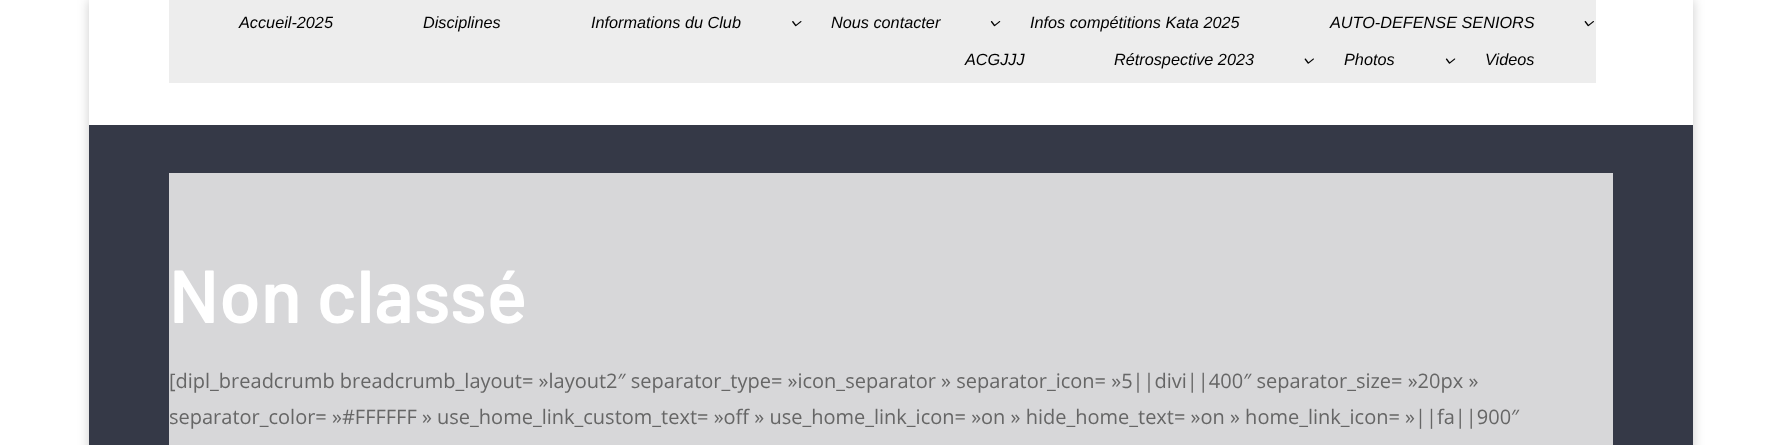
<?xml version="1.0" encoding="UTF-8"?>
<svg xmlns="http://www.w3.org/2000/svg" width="1781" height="445">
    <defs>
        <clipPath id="clip1"><path d="M 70 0 H 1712 V 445 H 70 Z M 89 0 H 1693 V 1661 H 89 Z" clip-rule="evenodd"/></clipPath>
        <filter id="blur1" x="-50%" y="-200%" width="200%" height="500%"><feGaussianBlur stdDeviation="6"/></filter>
    </defs>
    <rect width="100%" height="100%" fill="#FFFFFF"/>
    <g clip-path="url(#clip1)">
        <rect x="89" y="0" width="1604" height="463" fill="#000000" fill-opacity="0.2" filter="url(#blur1)"/>
    </g>
    <rect x="169" y="0" width="1427" height="83" fill="#EDEDED"/>
    <text x="239" y="28" font-family="Liberation Sans" font-size="16.25" font-style="italic" fill="#000000">Accueil-2025</text>
    <text x="423" y="28" font-family="Liberation Sans" font-size="16.25" font-style="italic" fill="#000000">Disciplines</text>
    <text x="591" y="28" font-family="Liberation Sans" font-size="16.25" font-style="italic" fill="#000000">Informations du Club</text>
    <image x="792" y="21" width="10" height="6" href="img_01.png"/>
    <text x="831" y="28" font-family="Liberation Sans" font-size="16.25" font-style="italic" fill="#000000">Nous contacter</text>
    <image x="990" y="21" width="11" height="6" href="img_02.png"/>
    <text x="1030" y="28" font-family="Liberation Sans" font-size="16.25" font-style="italic" fill="#000000">Infos compétitions Kata 2025</text>
    <text x="1330" y="28" font-family="Liberation Sans" font-size="16.25" font-style="italic" fill="#000000">AUTO-DEFENSE SENIORS</text>
    <image x="1584" y="21" width="10" height="6" href="img_03.png"/>
    <text x="965" y="65" font-family="Liberation Sans" font-size="16.25" font-style="italic" fill="#000000">ACGJJJ</text>
    <text x="1114" y="65" font-family="Liberation Sans" font-size="16.25" font-style="italic" fill="#000000">Rétrospective 2023</text>
    <image x="1304" y="58" width="10" height="6" href="img_04.png"/>
    <text x="1344" y="65" font-family="Liberation Sans" font-size="16.25" font-style="italic" fill="#000000">Photos</text>
    <image x="1445" y="58" width="11" height="6" href="img_05.png"/>
    <text x="1485" y="65" font-family="Liberation Sans" font-size="16.25" font-style="italic" fill="#000000">Videos</text>
    <rect x="89" y="125" width="1604" height="320" fill="#353947"/>
    <rect x="169" y="173" width="1444" height="272" fill="#D7D7D9"/>
    <text x="169" y="323" font-family="Barlow" font-size="75" font-weight="600" fill="#FFFFFF">Non classé</text>
    <text font-family="Open Sans" font-size="20" fill="#666666">
        <tspan x="169" y="388">[dipl_breadcrumb breadcrumb_layout= »layout2″ separator_type= »icon_separator » separator_icon= »5||divi||400″ separator_size= »20px »</tspan>
        <tspan x="169" y="424">separator_color= »#FFFFFF » use_home_link_custom_text= »off » use_home_link_icon= »on » hide_home_text= »on » home_link_icon= »||fa||900″</tspan>
    </text>
</svg>
